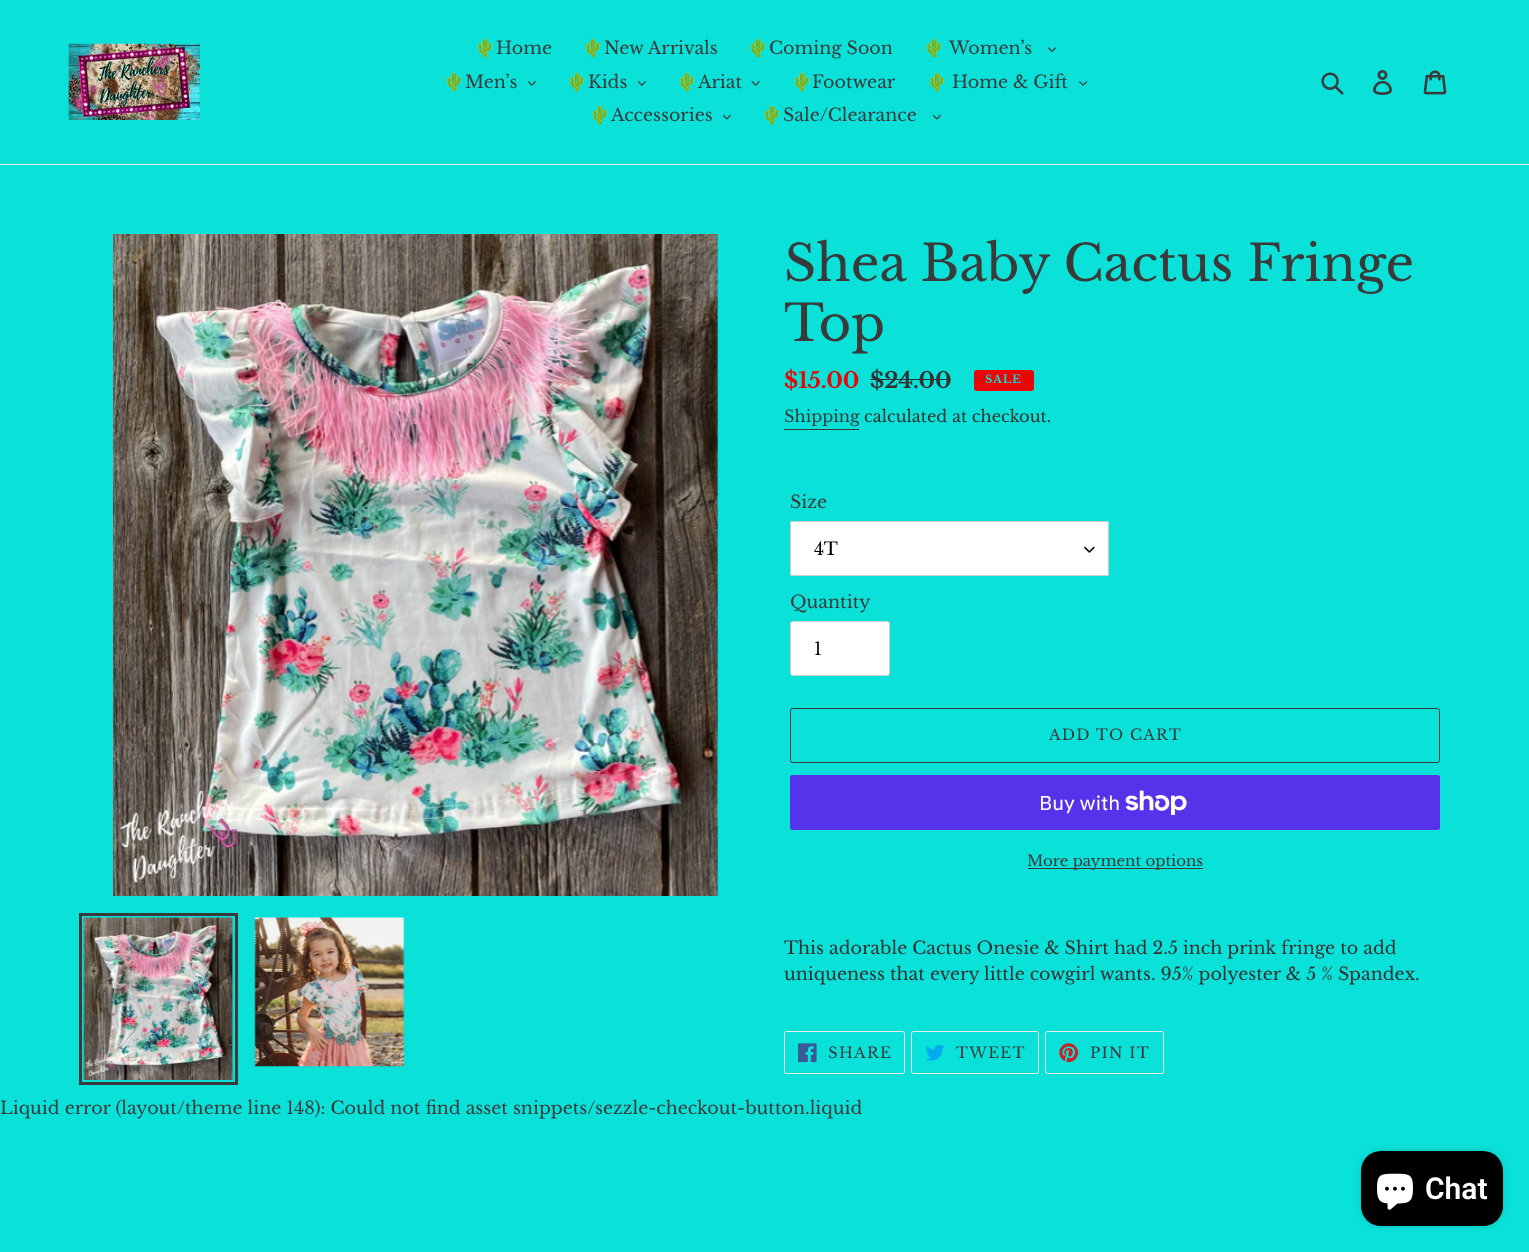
<?xml version="1.0" encoding="UTF-8"?>
<svg xmlns="http://www.w3.org/2000/svg" width="1529" height="1252">
    <defs>
        <filter id="blur1" x="-50%" y="-200%" width="200%" height="500%"><feGaussianBlur stdDeviation="3"/></filter>
    </defs>
    <rect width="100%" height="100%" fill="#0AE1D9"/>
    <rect x="0" y="164" width="1529" height="1" fill="#EBEBEB"/>
    <image x="68" y="43" width="132" height="77" href="img_01.png"/>
    <text x="474" y="54" font-family="Noto Color Emoji" font-size="17.5" fill="#3A3A3A">🌵</text>
    <text x="496" y="54" font-family="Libre Baskerville" font-size="17.5" fill="#3A3A3A">Home</text>
    <text x="582" y="54" font-family="Noto Color Emoji" font-size="17.5" fill="#3A3A3A">🌵</text>
    <text x="604" y="54" font-family="Libre Baskerville" font-size="17.5" fill="#3A3A3A">New Arrivals</text>
    <text x="747" y="54" font-family="Noto Color Emoji" font-size="17.5" fill="#3A3A3A">🌵</text>
    <text x="769" y="54" font-family="Libre Baskerville" font-size="17.5" fill="#3A3A3A">Coming Soon</text>
    <text x="923" y="54" font-family="Noto Color Emoji" font-size="17.5" fill="#3A3A3A">🌵</text>
    <text x="949" y="54" font-family="Libre Baskerville" font-size="17.5" fill="#3A3A3A">Women’s</text>
    <image x="1048" y="47" width="8" height="5" href="img_02.png"/>
    <text x="443" y="88" font-family="Noto Color Emoji" font-size="17.5" fill="#3A3A3A">🌵</text>
    <text x="465" y="88" font-family="Libre Baskerville" font-size="17.5" fill="#3A3A3A">Men’s</text>
    <image x="528" y="81" width="8" height="5" href="img_03.png"/>
    <text x="566" y="88" font-family="Noto Color Emoji" font-size="17.5" fill="#3A3A3A">🌵</text>
    <text x="588" y="88" font-family="Libre Baskerville" font-size="17.5" fill="#3A3A3A">Kids</text>
    <image x="638" y="81" width="8" height="5" href="img_03.png"/>
    <text x="676" y="88" font-family="Noto Color Emoji" font-size="17.5" fill="#3A3A3A">🌵</text>
    <text x="698" y="88" font-family="Libre Baskerville" font-size="17.5" fill="#3A3A3A">Ariat</text>
    <image x="751" y="81" width="9" height="5" href="img_04.png"/>
    <text x="791" y="88" font-family="Noto Color Emoji" font-size="17.5" fill="#3A3A3A">🌵</text>
    <text x="812" y="88" font-family="Libre Baskerville" font-size="17.5" fill="#3A3A3A">Footwear</text>
    <text x="926" y="88" font-family="Noto Color Emoji" font-size="17.5" fill="#3A3A3A">🌵</text>
    <text x="952" y="88" font-family="Libre Baskerville" font-size="17.5" fill="#3A3A3A">Home &amp; Gift</text>
    <image x="1079" y="81" width="9" height="5" href="img_05.png"/>
    <text x="589" y="121" font-family="Noto Color Emoji" font-size="17.5" fill="#3A3A3A">🌵</text>
    <text x="611" y="121" font-family="Libre Baskerville" font-size="17.5" fill="#3A3A3A">Accessories</text>
    <image x="723" y="114" width="8" height="6" href="img_06.png"/>
    <text x="761" y="121" font-family="Noto Color Emoji" font-size="17.5" fill="#3A3A3A">🌵</text>
    <text x="783" y="121" font-family="Libre Baskerville" font-size="17.5" fill="#3A3A3A">Sale/Clearance</text>
    <image x="933" y="114" width="8" height="6" href="img_06.png"/>
    <image x="1321" y="72" width="23" height="23" href="img_07.png"/>
    <image x="1373" y="70" width="19" height="25" href="img_08.png"/>
    <image x="1423" y="70" width="24" height="25" href="img_09.png"/>
    <image x="113" y="234" width="605" height="662" href="img_10.png"/>
    <rect x="80.5" y="914.5" width="156" height="169" fill="none" stroke="#3A3A3A" stroke-width="3"/>
    <image x="83" y="917" width="151" height="163" href="img_11.png"/>
    <image x="254" y="917" width="151" height="150" href="img_12.png"/>
    <text font-family="Libre Baskerville" font-size="50" fill="#3A3A3A">
        <tspan x="784" y="281">Shea Baby Cactus Fringe</tspan>
        <tspan x="784" y="341">Top</tspan>
    </text>
    <text x="784" y="388" font-family="Libre Baskerville" font-size="22" font-weight="700" fill="#EA0606">$15.00</text>
    <text x="870" y="388" font-family="Libre Baskerville" font-size="22" font-weight="700" fill="#333232">$24.00</text>
    <rect x="870" y="379" width="81" height="1" fill="#333232"/>
    <rect x="974.5" y="370.5" width="59" height="20" rx="2" fill="#EA0606" stroke="#EA0606"/>
    <text x="985" y="383" font-family="Libre Baskerville" font-size="11" font-weight="700" letter-spacing="1" fill="#0AE1D9">SALE</text>
    <text x="784" y="422" font-family="Libre Baskerville" font-size="16.25" fill="#3A3A3A">Shipping</text>
    <rect x="784" y="429" width="75" height="1" fill="#3A3A3A"/>
    <text x="864" y="422" font-family="Libre Baskerville" font-size="16.25" fill="#333232">calculated at checkout.</text>
    <text x="790" y="508" font-family="Libre Baskerville" font-size="17.5" fill="#3A3A3A">Size</text>
    <rect x="790" y="521" width="319" height="55" rx="2.5" fill="#FFFFFF"/>
    <image x="1084" y="546" width="11" height="7" href="img_13.png"/>
    <rect x="790.5" y="521.5" width="318" height="54" rx="2" fill="none" stroke="#CCCCCC"/>
    <text x="814" y="555" font-family="Libre Baskerville" font-size="17.5" fill="#000000">4T</text>
    <text x="790" y="608" font-family="Libre Baskerville" font-size="17.5" fill="#3A3A3A">Quantity</text>
    <rect x="790.5" y="621.5" width="99" height="54" rx="2" fill="#FFFFFF" stroke="#CCCCCC"/>
    <text x="814" y="655" font-family="Libre Baskerville" font-size="17.5" fill="#000000">1</text>
    <rect x="790.5" y="708.5" width="649" height="54" rx="2" fill="none" stroke="#3A3A3A"/>
    <text x="1049" y="740" font-family="Libre Baskerville" font-size="15" letter-spacing="1.25" fill="#3A3A3A">ADD TO CART</text>
    <rect x="790" y="775" width="650" height="55" rx="2.5" fill="#5433EB"/>
    <text x="1039" y="810" font-family="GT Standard" font-size="20" fill="#FFFFFF">Buy with</text>
    <image x="1125" y="790" width="62" height="25" href="img_14.png"/>
    <rect x="1028" y="868" width="175" height="1" fill="#3A3A3A"/>
    <text x="1027" y="866" font-family="Libre Baskerville" font-size="15" fill="#3A3A3A">More payment options</text>
    <text font-family="Libre Baskerville" font-size="17.5" fill="#333232">
        <tspan x="784" y="954">This adorable Cactus Onesie &amp; Shirt had 2.5 inch prink fringe to add</tspan>
        <tspan x="784" y="980">uniqueness that every little cowgirl wants. 95% polyester &amp; 5 % Spandex.</tspan>
    </text>
    <rect x="784.5" y="1031.5" width="120" height="42" rx="2" fill="none" stroke="#EBEBEB"/>
    <image x="798" y="1043" width="19" height="20" href="img_15.png"/>
    <text x="828" y="1058" font-family="Libre Baskerville" font-size="15" letter-spacing="1.25" fill="#3A3A3A">SHARE</text>
    <rect x="911.5" y="1031.5" width="127" height="42" rx="2" fill="none" stroke="#EBEBEB"/>
    <image x="925" y="1044" width="19" height="17" href="img_16.png"/>
    <text x="956" y="1058" font-family="Libre Baskerville" font-size="15" letter-spacing="1.25" fill="#3A3A3A">TWEET</text>
    <rect x="1045.5" y="1031.5" width="118" height="42" rx="2" fill="none" stroke="#EBEBEB"/>
    <image x="1059" y="1043" width="20" height="20" href="img_17.png"/>
    <text x="1090" y="1058" font-family="Libre Baskerville" font-size="15" letter-spacing="1.25" fill="#3A3A3A">PIN IT</text>
    <text x="0" y="1114" font-family="Libre Baskerville" font-size="17.5" fill="#3A3A3A">Liquid error (layout/theme line 148): Could not find asset snippets/sezzle-checkout-button.liquid</text>
    <rect x="1361" y="1151" width="142" height="75" rx="20" fill="#000000" fill-opacity="0.15" filter="url(#blur1)"/>
    <rect x="1361" y="1151" width="142" height="75" rx="20" fill="#000000"/>
    <image x="1377" y="1173" width="36" height="37" href="img_18.png"/>
    <text x="1425" y="1199" font-family="Roboto" font-size="30" font-weight="600" fill="#FFFFFF">Chat</text>
</svg>
